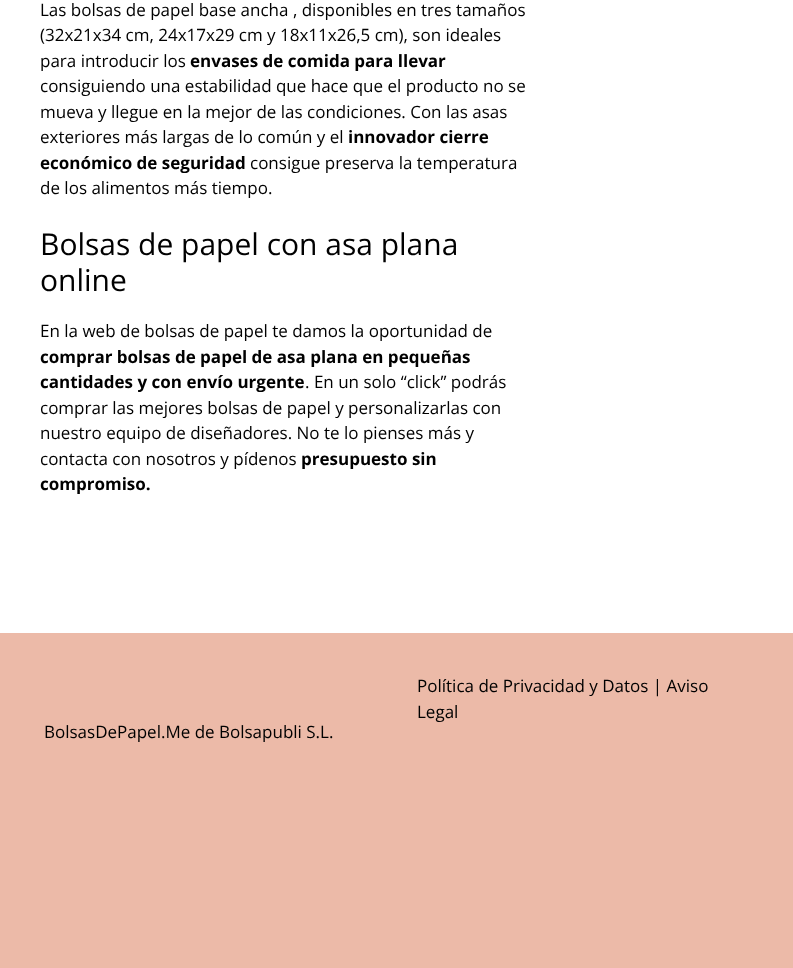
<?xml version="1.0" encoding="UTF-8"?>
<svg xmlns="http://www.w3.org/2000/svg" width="793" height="968">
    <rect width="100%" height="100%" fill="#FFFFFF"/>
    <text font-family="Open Sans" font-size="17" fill="#000000">
        <tspan x="40" y="16">Las bolsas de papel base ancha , disponibles en tres tamaños</tspan>
        <tspan x="40" y="41">(32x21x34 cm, 24x17x29 cm y 18x11x26,5 cm), son ideales</tspan>
        <tspan x="40" y="67">para introducir los</tspan>
    </text>
    <text x="190" y="67" font-family="Open Sans" font-size="17" font-weight="700" fill="#000000">envases de comida para llevar</text>
    <text font-family="Open Sans" font-size="17" fill="#000000">
        <tspan x="40" y="92">consiguiendo una estabilidad que hace que el producto no se</tspan>
        <tspan x="40" y="118">mueva y llegue en la mejor de las condiciones. Con las asas</tspan>
        <tspan x="40" y="143">exteriores más largas de lo común y el</tspan>
    </text>
    <text x="348" y="143" font-family="Open Sans" font-size="17" font-weight="700" fill="#000000">innovador cierre</text>
    <text x="40" y="169" font-family="Open Sans" font-size="17" font-weight="700" fill="#000000">económico de seguridad</text>
    <text x="250" y="169" font-family="Open Sans" font-size="17" fill="#000000">consigue preserva la temperatura</text>
    <text x="40" y="194" font-family="Open Sans" font-size="17" fill="#000000">de los alimentos más tiempo.</text>
    <text font-family="Open Sans" font-size="30" fill="#000000">
        <tspan x="40" y="255">Bolsas de papel con asa plana</tspan>
        <tspan x="40" y="291">online</tspan>
    </text>
    <text x="40" y="337" font-family="Open Sans" font-size="17" fill="#000000">En la web de bolsas de papel te damos la oportunidad de</text>
    <text font-family="Open Sans" font-size="17" font-weight="700" fill="#000000">
        <tspan x="40" y="363">comprar bolsas de papel de asa plana en pequeñas</tspan>
        <tspan x="40" y="388">cantidades y con envío urgente</tspan>
    </text>
    <text x="305" y="388" font-family="Open Sans" font-size="17" fill="#000000">. En un solo “click” podrás</text>
    <text font-family="Open Sans" font-size="17" fill="#000000">
        <tspan x="40" y="414">comprar las mejores bolsas de papel y personalizarlas con</tspan>
        <tspan x="40" y="439">nuestro equipo de diseñadores. No te lo pienses más y</tspan>
        <tspan x="40" y="465">contacta con nosotros y pídenos</tspan>
    </text>
    <text x="301" y="465" font-family="Open Sans" font-size="17" font-weight="700" fill="#000000">presupuesto sin</text>
    <text x="40" y="490" font-family="Open Sans" font-size="17" font-weight="700" fill="#000000">compromiso.</text>
    <rect x="0" y="633" width="793" height="335" fill="#ECBAA8"/>
    <text font-family="Open Sans" font-size="17" fill="#000000">
        <tspan x="417" y="692">Política de Privacidad y Datos | Aviso</tspan>
        <tspan x="417" y="718">Legal</tspan>
    </text>
    <text x="44" y="738" font-family="Open Sans" font-size="17" fill="#000000">BolsasDePapel.Me de Bolsapubli S.L.</text>
</svg>
